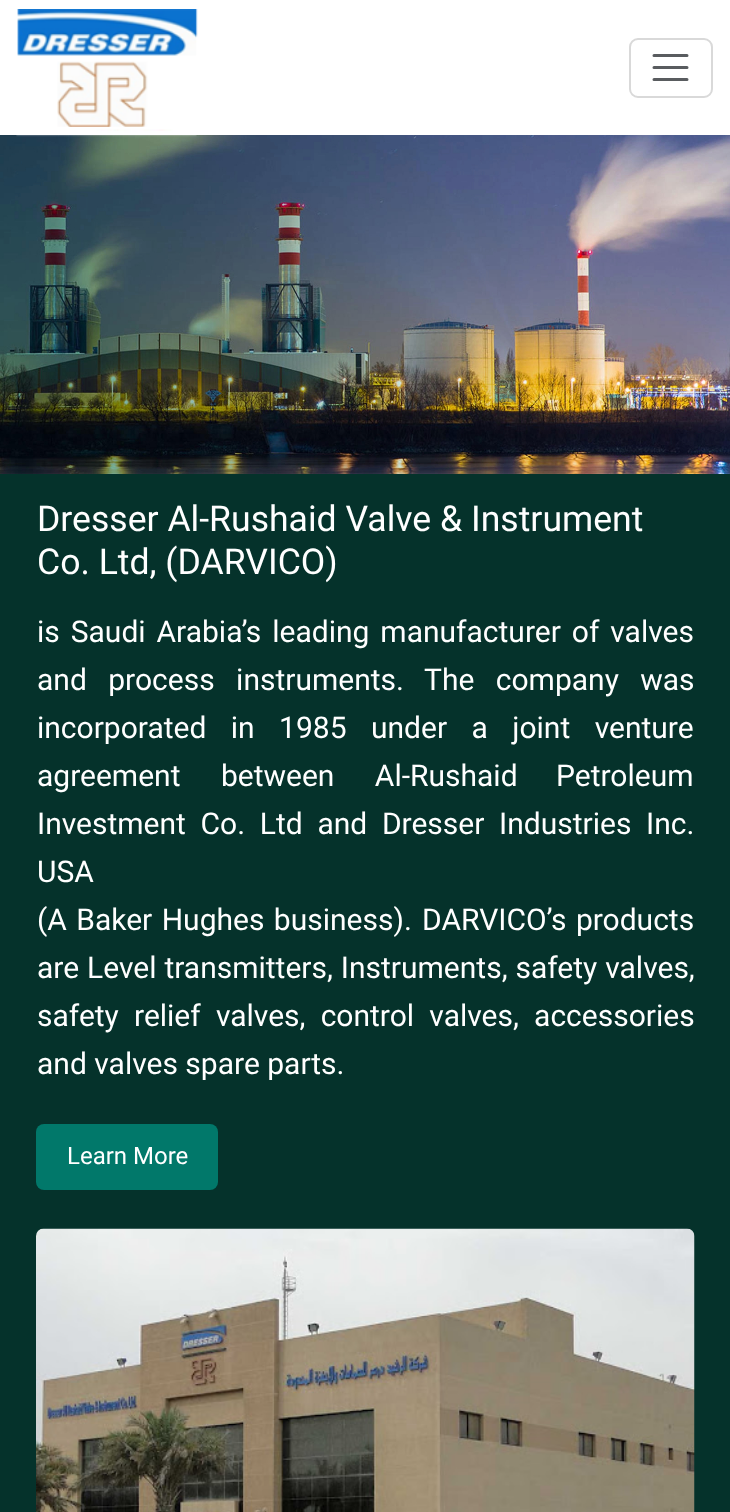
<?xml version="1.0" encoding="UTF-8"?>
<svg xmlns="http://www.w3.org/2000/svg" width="730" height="1512">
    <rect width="100%" height="100%" fill="#05322B"/>
    <rect x="0" y="0" width="730" height="135" fill="#FFFFFF"/>
    <image x="0" y="135" width="730" height="339" href="img_02.png"/>
    <image x="16" y="9" width="182" height="128" href="img_01.png"/>
    <rect x="630" y="39" width="82" height="58" rx="8" fill="none" stroke="#D9D9D9" stroke-width="2"/>
    <path d="M 654 55.5 H 687 M 654 67.5 H 687 M 654 79.5 H 687" fill="none" stroke="#595C5F" stroke-width="3" stroke-linecap="round"/>
    <text font-family="Roboto" font-size="35.6" fill="#FFFFFF">
        <tspan x="37" y="531">Dresser Al-Rushaid Valve &amp; Instrument</tspan>
        <tspan x="37" y="574">Co. Ltd, (DARVICO)</tspan>
    </text>
    <text font-family="Roboto" font-size="30" fill="#FFFFFF">
        <tspan x="37" y="642" word-spacing="3.5">is Saudi Arabia’s leading manufacturer of valves</tspan>
        <tspan x="37" y="690" word-spacing="14">and process instruments.</tspan>
    </text>
    <text x="424" y="690" word-spacing="14" font-family="Roboto" font-size="30" fill="#FFFFFF">The company was</text>
    <text font-family="Roboto" font-size="30" fill="#FFFFFF">
        <tspan x="37" y="738" word-spacing="17">incorporated in 1985 under a joint venture</tspan>
        <tspan x="37" y="786" word-spacing="33">agreement between Al-Rushaid</tspan>
    </text>
    <text x="556" y="786" font-family="Roboto" font-size="30" fill="#FFFFFF">Petroleum</text>
    <text font-family="Roboto" font-size="30" fill="#FFFFFF">
        <tspan x="37" y="834" word-spacing="7.25">Investment Co. Ltd and Dresser Industries Inc.</tspan>
        <tspan x="37" y="882">USA</tspan>
        <tspan x="37" y="930" word-spacing="2">(A Baker Hughes business).</tspan>
    </text>
    <text x="422" y="930" word-spacing="2" font-family="Roboto" font-size="30" fill="#FFFFFF">DARVICO’s products</text>
    <text font-family="Roboto" font-size="30" fill="#FFFFFF">
        <tspan x="37" y="978" word-spacing="0.5">are Level transmitters, Instruments, safety valves,</tspan>
        <tspan x="37" y="1026" word-spacing="7.75">safety relief valves, control valves, accessories</tspan>
        <tspan x="37" y="1074">and valves spare parts.</tspan>
    </text>
    <rect x="36" y="1124" width="182" height="66" rx="8" fill="#01786A"/>
    <text x="67" y="1164" font-family="Roboto" font-size="24" fill="#FFFFFF">Learn More</text>
    <image x="36" y="1228" width="659" height="284" href="img_03.png"/>
</svg>
